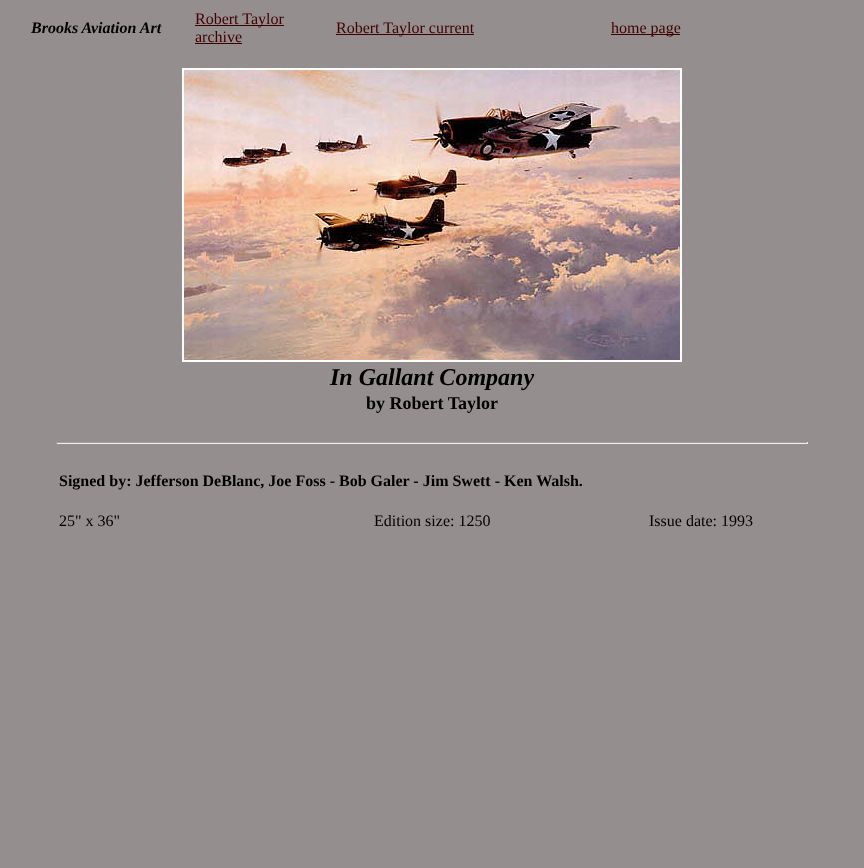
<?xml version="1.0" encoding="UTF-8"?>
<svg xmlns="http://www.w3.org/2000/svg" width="864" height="868">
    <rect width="100%" height="100%" fill="#958E8E"/>
    <text x="31" y="33" font-family="Liberation Serif" font-size="16" font-weight="700" font-style="italic" fill="#000000">Brooks Aviation Art</text>
    <rect x="195" y="25" width="89" height="1" fill="#400000"/>
    <text font-family="Liberation Serif" font-size="16" fill="#400000">
        <tspan x="195" y="24">Robert Taylor</tspan>
        <tspan x="195" y="42">archive</tspan>
    </text>
    <rect x="195" y="43" width="47" height="1" fill="#400000"/>
    <rect x="336" y="34" width="138" height="1" fill="#400000"/>
    <text x="336" y="33" font-family="Liberation Serif" font-size="16" fill="#400000">Robert Taylor current</text>
    <rect x="611" y="34" width="69" height="1" fill="#400000"/>
    <text x="611" y="33" font-family="Liberation Serif" font-size="16" fill="#400000">home page</text>
    <image x="182" y="68" width="500" height="294" href="img_01.png"/>
    <text x="330" y="385" font-family="Liberation Serif" font-size="24" font-weight="700" font-style="italic" fill="#000000">In Gallant Company</text>
    <text x="366" y="409" font-family="Liberation Serif" font-size="18" font-weight="700" fill="#000000">by Robert Taylor</text>
    <rect x="56" y="442" width="752" height="1" fill="#9F9F9F"/>
    <rect x="807" y="442" width="1" height="2" fill="#EEEEEE"/>
    <rect x="56" y="443" width="752" height="1" fill="#EEEEEE"/>
    <rect x="56" y="442" width="1" height="2" fill="#9F9F9F"/>
    <text x="59" y="486" font-family="Liberation Serif" font-size="16" font-weight="700" fill="#000000">Signed by: Jefferson DeBlanc, Joe Foss - Bob Galer - Jim Swett - Ken Walsh.</text>
    <text x="59" y="526" font-family="Liberation Serif" font-size="16" fill="#000000">25" x 36"</text>
    <text x="374" y="526" font-family="Liberation Serif" font-size="16" fill="#000000">Edition size: 1250</text>
    <text x="649" y="526" font-family="Liberation Serif" font-size="16" fill="#000000">Issue date: 1993</text>
</svg>
